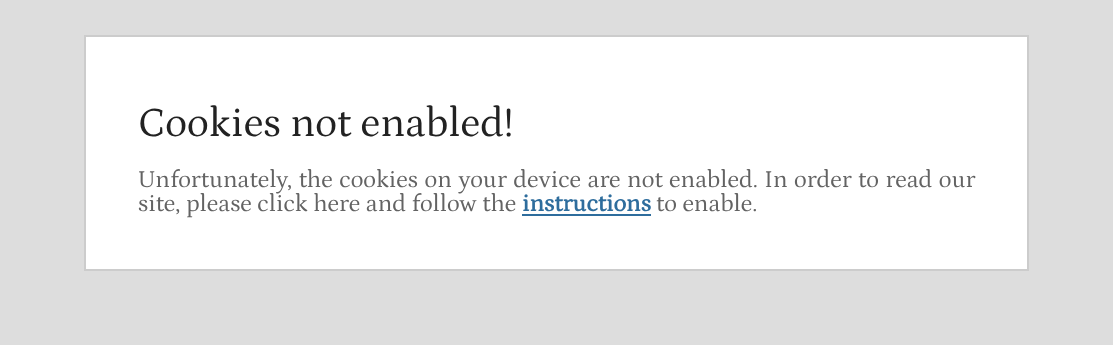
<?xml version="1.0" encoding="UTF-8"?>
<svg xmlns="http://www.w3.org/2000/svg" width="1113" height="345">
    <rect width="100%" height="100%" fill="#DDDDDD"/>
    <rect x="85" y="36" width="943" height="234" fill="#FFFFFF" stroke="#CCCCCC" stroke-width="2"/>
    <text x="138" y="136" font-family="Petrona" font-size="42" fill="#222222">Cookies not enabled!</text>
    <text font-family="Petrona" font-size="24.5" fill="#636363">
        <tspan x="138" y="187" word-spacing="1">Unfortunately, the cookies on your device are not enabled. In order to read our</tspan>
        <tspan x="138" y="211">site, please click here and follow the</tspan>
    </text>
    <text x="522" y="211" font-family="Petrona" font-size="24.5" font-weight="700" fill="#2E6D9D">instructions</text>
    <rect x="522" y="214" width="129" height="2" fill="#2E6D9D"/>
    <text x="656" y="211" font-family="Petrona" font-size="24.5" fill="#636363">to enable.</text>
</svg>
